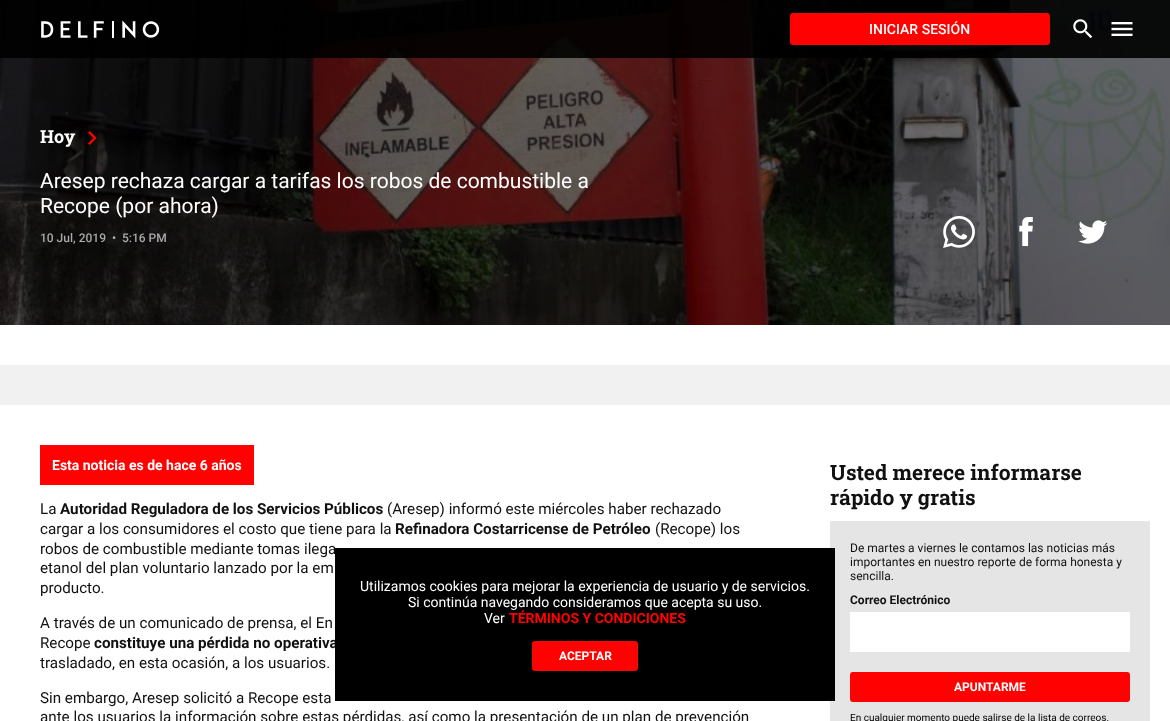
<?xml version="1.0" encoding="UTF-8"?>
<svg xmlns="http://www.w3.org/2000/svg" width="1170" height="721">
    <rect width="100%" height="100%" fill="#FFFFFF"/>
    <image x="0" y="0" width="1170" height="325" href="img_04.png"/>
    <rect x="0" y="0" width="1170" height="58" fill="#000000" fill-opacity="0.9"/>
    <image x="41" y="20" width="119" height="19" href="img_01.png"/>
    <rect x="791" y="14" width="258" height="30" rx="2" fill="#FF0100" stroke="#FF0100" stroke-width="2"/>
    <text x="869" y="34" font-family="Roboto" font-size="14" font-weight="500" fill="#FFFFFF">INICIAR SESIÓN</text>
    <image x="1073" y="19" width="20" height="20" href="img_02.png"/>
    <image x="1111" y="22" width="22" height="14" href="img_03.png"/>
    <text x="40" y="143" font-family="Roboto Slab" font-size="18" font-weight="700" fill="#FFFFFF">Hoy</text>
    <image x="88" y="131" width="9" height="14" href="img_05.png"/>
    <text font-family="Roboto" font-size="21" fill="#FFFFFF">
        <tspan x="40" y="188">Aresep rechaza cargar a tarifas los robos de combustible a</tspan>
        <tspan x="40" y="213">Recope (por ahora)</tspan>
    </text>
    <text x="40" y="242" font-family="Roboto" font-size="12" font-weight="500" fill="#AAAAAA">10 Jul, 2019</text>
    <text x="112" y="242" font-family="Roboto" font-size="12" font-weight="500" fill="#AAAAAA">•</text>
    <text x="122" y="242" font-family="Roboto" font-size="12" font-weight="500" fill="#AAAAAA">5:16 PM</text>
    <image x="943" y="216" width="32" height="32" href="img_06.png"/>
    <image x="1019" y="217" width="14" height="30" href="img_07.png"/>
    <image x="1078" y="220" width="30" height="24" href="img_08.png"/>
    <rect x="0" y="365" width="1170" height="40" fill="#F1F1F1"/>
    <rect x="40" y="445" width="214" height="40" fill="#FF0100"/>
    <text x="52" y="470" font-family="Roboto" font-size="14" font-weight="700" fill="#FFFFFF">Esta noticia es de hace 6 años</text>
    <text x="40" y="514" font-family="Roboto" font-size="15.2" fill="#111111">La</text>
    <text x="60" y="514" font-family="Roboto" font-size="15.2" font-weight="700" fill="#111111">Autoridad Reguladora de los Servicios Públicos</text>
    <text x="387" y="514" font-family="Roboto" font-size="15.2" fill="#111111">(Aresep) informó este miércoles haber rechazado</text>
    <text x="40" y="534" font-family="Roboto" font-size="15.2" fill="#111111">cargar a los consumidores el costo que tiene para la</text>
    <text x="395" y="534" font-family="Roboto" font-size="15.2" font-weight="700" fill="#111111">Refinadora Costarricense de Petróleo</text>
    <text x="655" y="534" font-family="Roboto" font-size="15.2" fill="#111111">(Recope) los</text>
    <text font-family="Roboto" font-size="15.2" fill="#111111">
        <tspan x="40" y="554">robos de combustible mediante tomas ilega</tspan>
        <tspan x="40" y="573">etanol del plan voluntario lanzado por la em</tspan>
        <tspan x="40" y="593">producto.</tspan>
    </text>
    <text font-family="Roboto" font-size="15.2" fill="#111111">
        <tspan x="40" y="628">A través de un comunicado de prensa, el En</tspan>
        <tspan x="40" y="648">Recope</tspan>
    </text>
    <text x="94" y="648" font-family="Roboto" font-size="15.2" font-weight="700" fill="#111111">constituye una pérdida no operativa</text>
    <text x="40" y="668" font-family="Roboto" font-size="15.2" fill="#111111">trasladado, en esta ocasión, a los usuarios.</text>
    <text font-family="Roboto" font-size="15.2" fill="#111111">
        <tspan x="40" y="703">Sin embargo, Aresep solicitó a Recope esta</tspan>
        <tspan x="40" y="722">ante los usuarios la información sobre estas pérdidas, así como la presentación de un plan de prevención</tspan>
    </text>
    <text font-family="Roboto Slab" font-size="21" font-weight="700" fill="#111111">
        <tspan x="830" y="480">Usted merece informarse</tspan>
        <tspan x="830" y="505">rápido y gratis</tspan>
    </text>
    <rect x="830" y="521" width="320" height="200" fill="#E5E5E5"/>
    <text font-family="Roboto" font-size="12" fill="#111111">
        <tspan x="850" y="552">De martes a viernes le contamos las noticias más</tspan>
        <tspan x="850" y="566">importantes en nuestro reporte de forma honesta y</tspan>
        <tspan x="850" y="580">sencilla.</tspan>
    </text>
    <text x="850" y="604" font-family="Roboto" font-size="12" font-weight="700" fill="#111111">Correo Electrónico</text>
    <rect x="850" y="612" width="280" height="40" fill="#FFFFFF"/>
    <rect x="851" y="673" width="278" height="28" rx="2" fill="#FF0100" stroke="#FF0100" stroke-width="2"/>
    <text x="954" y="691" font-family="Roboto" font-size="12" font-weight="700" fill="#FFFFFF">APUNTARME</text>
    <text x="850" y="721" font-family="Roboto" font-size="10" fill="#000000">En cualquier momento puede salirse de la lista de correos.</text>
    <rect x="335" y="548" width="500" height="153" fill="#000000"/>
    <text x="360" y="591" font-family="Roboto" font-size="14" fill="#FFFFFF">Utilizamos cookies para mejorar la experiencia de usuario y de servicios.</text>
    <text x="408" y="607" font-family="Roboto" font-size="14" fill="#FFFFFF">Si continúa navegando consideramos que acepta su uso.</text>
    <text x="484" y="623" font-family="Roboto" font-size="14" fill="#FFFFFF">Ver</text>
    <text x="509" y="623" font-family="Roboto" font-size="14" font-weight="700" fill="#FF0100">TÉRMINOS Y CONDICIONES</text>
    <rect x="533" y="642" width="104" height="28" rx="2" fill="#FF0100" stroke="#FF0100" stroke-width="2"/>
    <text x="559" y="660" font-family="Roboto" font-size="12" font-weight="700" fill="#FFFFFF">ACEPTAR</text>
</svg>
